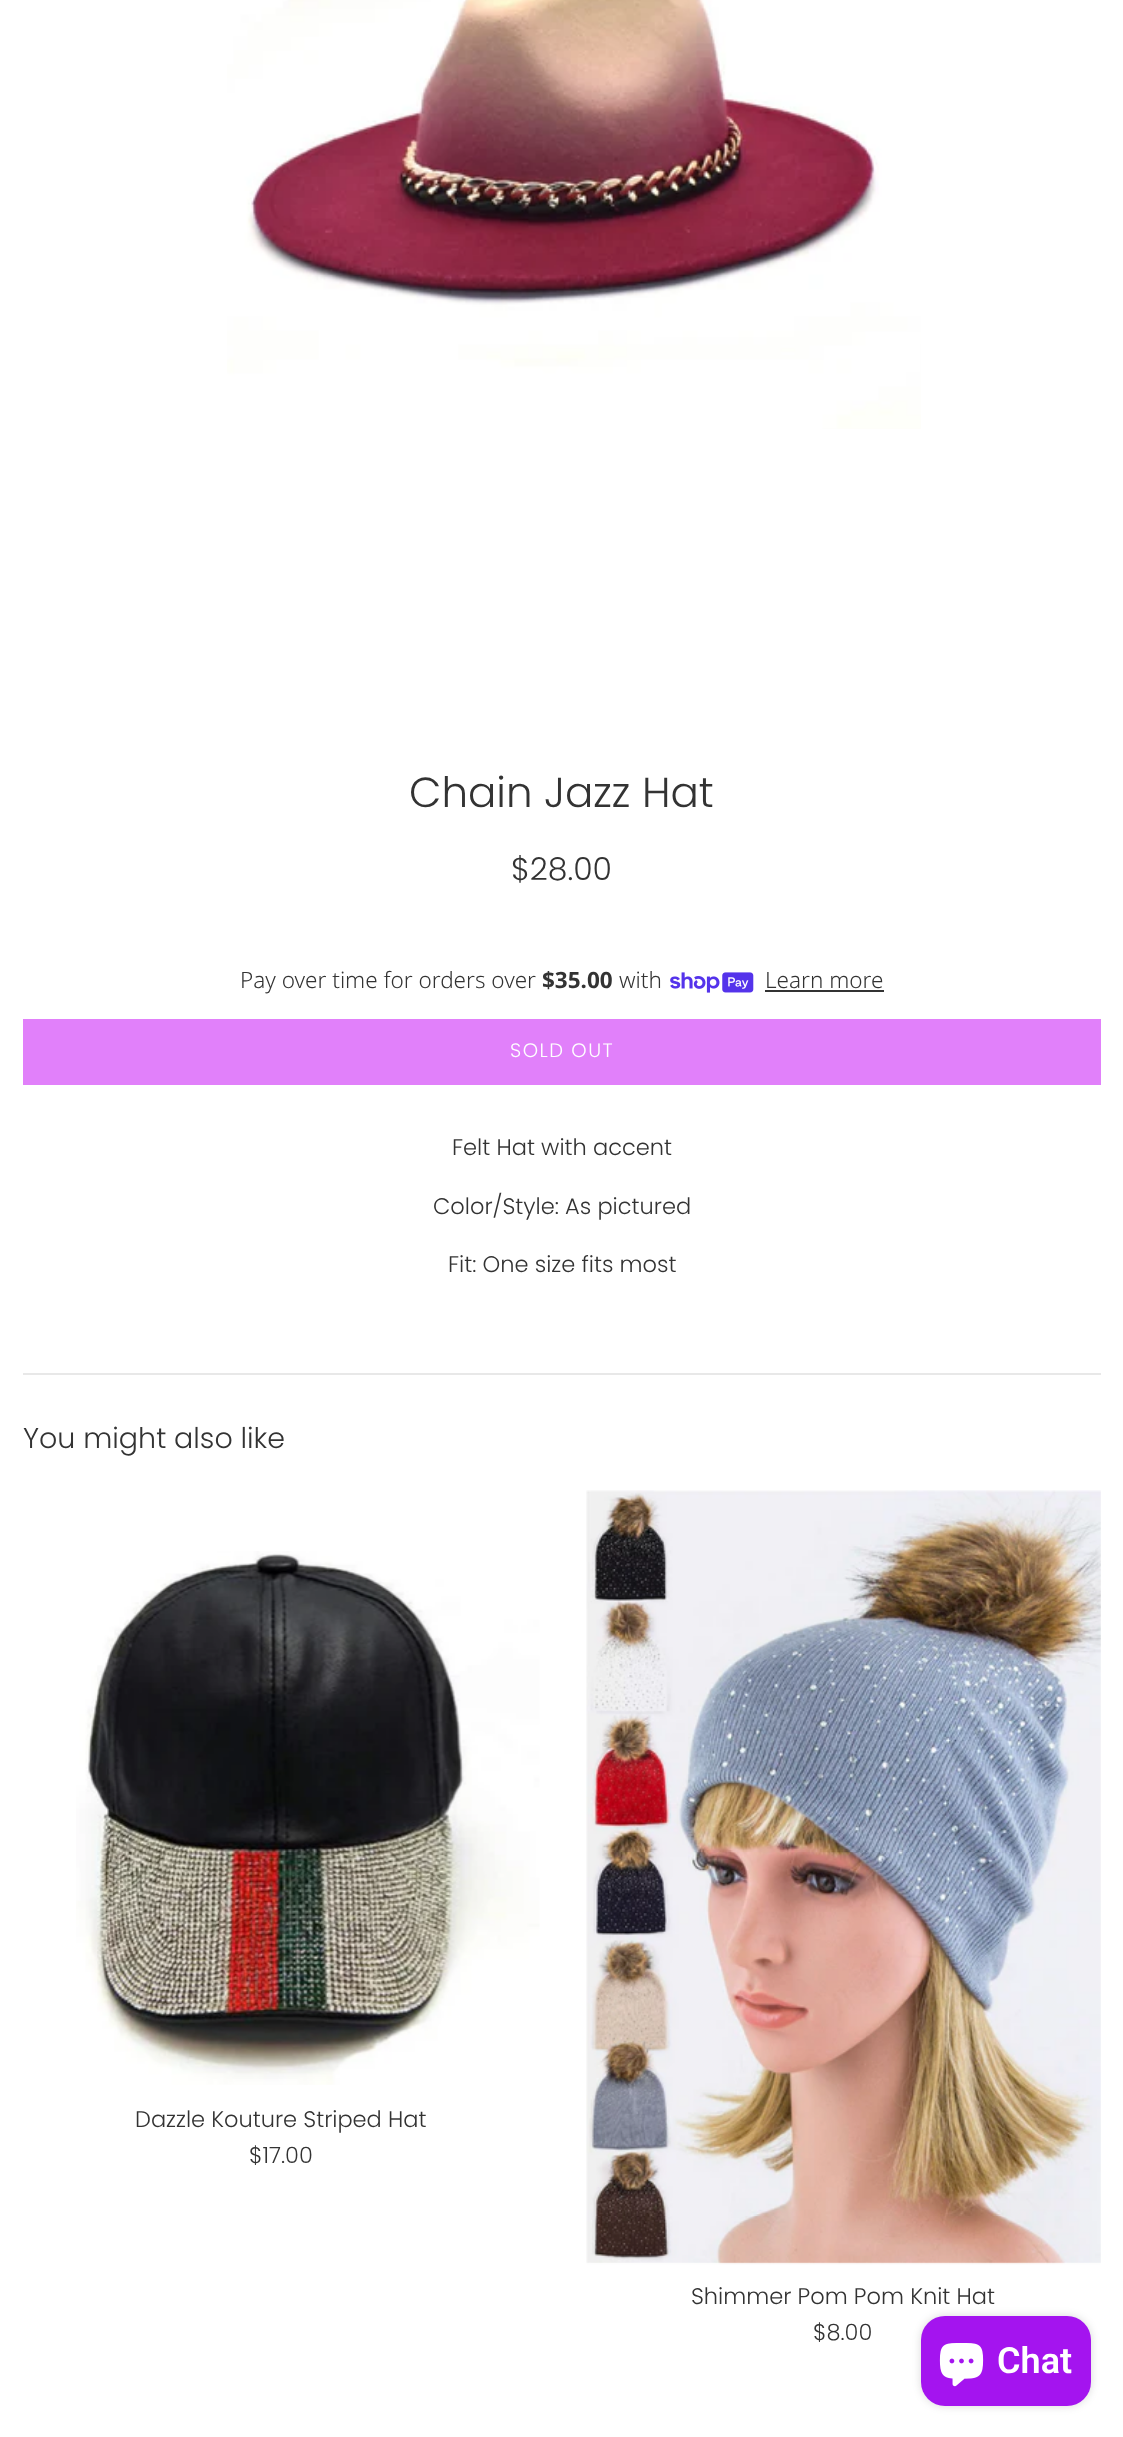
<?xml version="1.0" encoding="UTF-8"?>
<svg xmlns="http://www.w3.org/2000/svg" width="1123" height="2437">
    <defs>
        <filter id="blur1" x="-50%" y="-200%" width="200%" height="500%"><feGaussianBlur stdDeviation="4"/></filter>
    </defs>
    <rect width="100%" height="100%" fill="#FFFFFF"/>
    <image x="227" y="0" width="694" height="429" href="img_01.png"/>
    <text x="409" y="807" font-family="Poppins" font-size="42" font-weight="300" fill="#333333">Chain Jazz Hat</text>
    <text x="511" y="880" font-family="Poppins" font-size="31.5" font-weight="300" fill="#333333">$28.00</text>
    <text x="240" y="988" font-family="Noto Sans" font-size="22.5" font-weight="300" fill="#333333">Pay over time for orders over</text>
    <text x="542" y="988" font-family="Noto Sans" font-size="22.5" font-weight="700" fill="#333333">$35.00</text>
    <text x="619" y="988" font-family="Noto Sans" font-size="22.5" font-weight="300" fill="#333333">with</text>
    <image x="670" y="972" width="84" height="21" href="img_02.png"/>
    <text x="765" y="988" font-family="Noto Sans" font-size="22.5" font-weight="300" fill="#333333">Learn more</text>
    <rect x="765" y="990" width="119" height="2" fill="#333333"/>
    <rect x="23" y="1019" width="1078" height="66" fill="#E180FA"/>
    <text x="510" y="1057" font-family="Poppins" font-size="19.5" font-weight="300" letter-spacing="1.5" fill="#FFFFFF">SOLD OUT</text>
    <text x="452" y="1155" font-family="Poppins" font-size="22.5" font-weight="300" fill="#333333">Felt Hat with accent</text>
    <text x="433" y="1214" font-family="Poppins" font-size="22.5" font-weight="300" fill="#333333">Color/Style: As pictured</text>
    <text x="448" y="1272" font-family="Poppins" font-size="22.5" font-weight="300" fill="#333333">Fit: One size fits most</text>
    <rect x="23" y="1373" width="1078" height="2" fill="#E8E8E8"/>
    <text x="23" y="1448" font-family="Poppins" font-size="28.5" font-weight="300" fill="#333333">You might also like</text>
    <image x="76" y="1551" width="464" height="534" href="img_03.png"/>
    <text x="135" y="2127" font-family="Poppins" font-size="22.5" font-weight="300" fill="#333333">Dazzle Kouture Striped Hat</text>
    <text x="249" y="2163" font-family="Poppins" font-size="22.5" font-weight="300" fill="#333333">$17.00</text>
    <image x="586" y="1490" width="515" height="775" href="img_04.png"/>
    <text x="691" y="2304" font-family="Poppins" font-size="22.5" font-weight="300" fill="#333333">Shimmer Pom Pom Knit Hat</text>
    <text x="813" y="2340" font-family="Poppins" font-size="22.5" font-weight="300" fill="#333333">$8.00</text>
    <rect x="921" y="2316" width="170" height="90" rx="24" fill="#000000" fill-opacity="0.15" filter="url(#blur1)"/>
    <rect x="921" y="2316" width="170" height="90" rx="24" fill="#A414EF"/>
    <image x="939" y="2343" width="45" height="44" href="img_05.png"/>
    <text x="997" y="2373" font-family="Roboto" font-size="36" font-weight="600" fill="#FFFFFF">Chat</text>
</svg>
